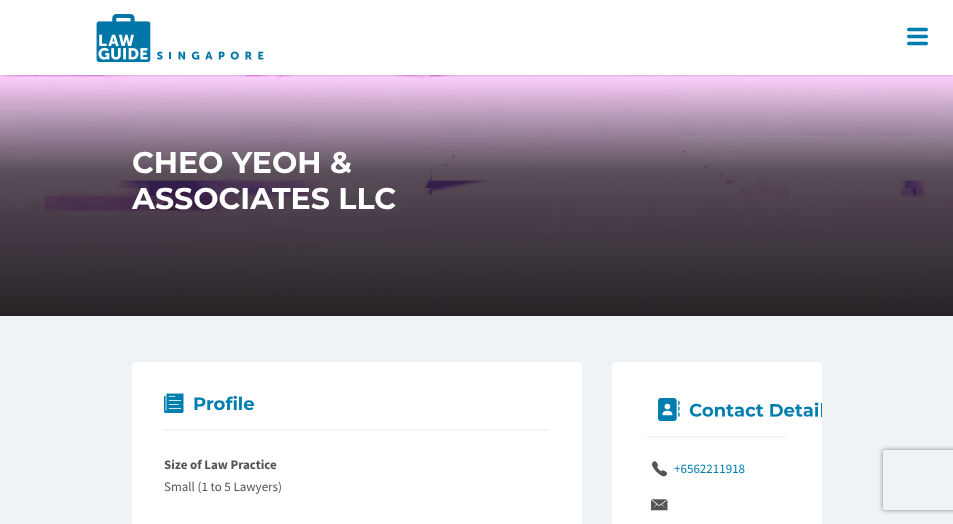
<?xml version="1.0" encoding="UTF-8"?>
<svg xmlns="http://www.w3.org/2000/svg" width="953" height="524">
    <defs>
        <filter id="blur1" x="-50%" y="-200%" width="200%" height="500%"><feGaussianBlur stdDeviation="1.5"/></filter>
        <clipPath id="clip1"><path d="M 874 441 H 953 V 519 H 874 Z M 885 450 H 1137 C 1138 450 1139 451 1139 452 V 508 C 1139 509 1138 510 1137 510 H 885 C 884 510 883 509 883 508 V 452 C 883 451 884 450 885 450 Z" clip-rule="evenodd"/></clipPath>
        <filter id="blur2" x="-50%" y="-200%" width="200%" height="500%"><feGaussianBlur stdDeviation="2.5"/></filter>
    </defs>
    <rect width="100%" height="100%" fill="#F0F3F6"/>
    <image x="0" y="75" width="953" height="241" href="img_03.png"/>
    <rect x="2" y="0" width="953" height="75" fill="#000000" fill-opacity="0.3" filter="url(#blur1)"/>
    <rect x="0" y="0" width="953" height="75" fill="#FFFFFF"/>
    <image x="96" y="14" width="168" height="48" href="img_01.png"/>
    <image x="907" y="27" width="21" height="19" href="img_02.png"/>
    <text font-family="Montserrat" font-size="30" font-weight="700" fill="#FFFFFF">
        <tspan x="132" y="173">CHEO YEOH &amp;</tspan>
        <tspan x="132" y="209">ASSOCIATES LLC</tspan>
    </text>
    <rect x="132.5" y="362.5" width="449" height="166" rx="3.5" fill="#FFFFFF" stroke="#FFFFFF"/>
    <rect x="164" y="429" width="386" height="2" fill="#F4F4F4"/>
    <image x="164" y="393" width="20" height="20" href="img_04.png"/>
    <text x="193" y="410" font-family="Montserrat" font-size="18" font-weight="700" fill="#007EAD">Profile</text>
    <text x="164" y="469" font-family="Source Sans Pro" font-size="13" font-weight="700" fill="#555555">Size of Law Practice</text>
    <text x="164" y="491" font-family="Source Sans Pro" font-size="13" fill="#555555">Small (1 to 5 Lawyers)</text>
    <rect x="612.5" y="362.5" width="209" height="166" rx="3.5" fill="#FFFFFF" stroke="#FFFFFF"/>
    <image x="658" y="398" width="164" height="23" href="img_05.png"/>
    <rect x="647" y="436" width="139" height="2" fill="#F4F4F4"/>
    <image x="652" y="461" width="16" height="16" href="img_06.png"/>
    <text x="674" y="473" font-family="Source Sans Pro" font-size="13" fill="#007EAD">+6562211918</text>
    <image x="651" y="499" width="17" height="12" href="img_07.png"/>
    <g clip-path="url(#clip1)">
        <rect x="883" y="450" width="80" height="60" rx="2" fill="#808080" filter="url(#blur2)"/>
    </g>
</svg>
